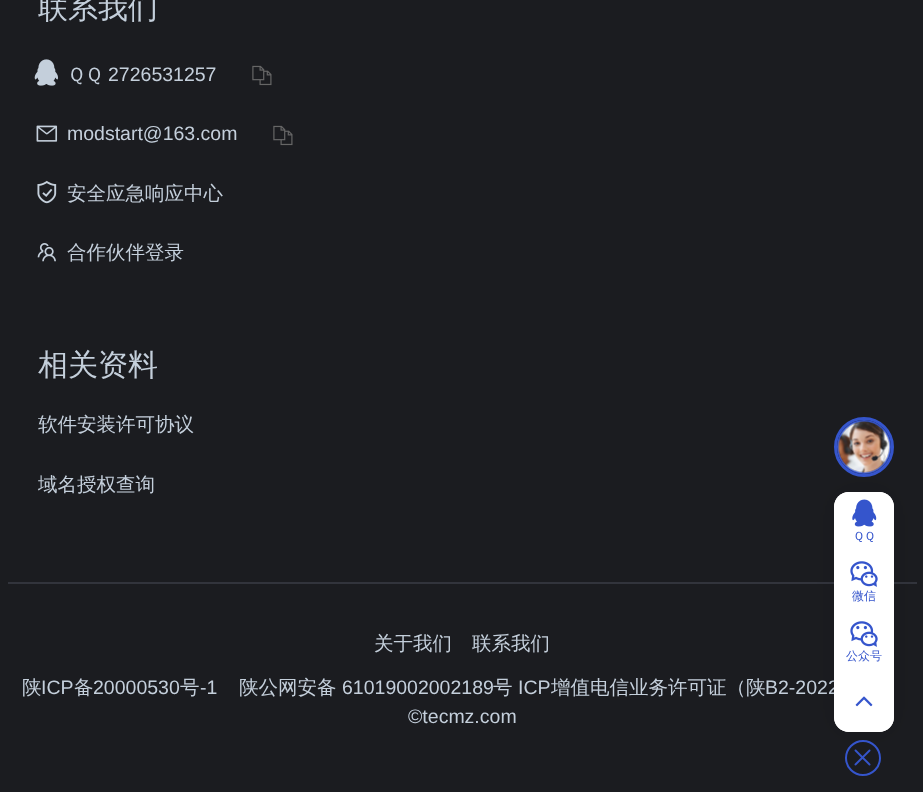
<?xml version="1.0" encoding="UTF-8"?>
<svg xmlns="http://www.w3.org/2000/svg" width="923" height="792">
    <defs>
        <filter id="blur1" x="-50%" y="-200%" width="200%" height="500%"><feGaussianBlur stdDeviation="15"/></filter>
    </defs>
    <rect width="100%" height="100%" fill="#1B1C20"/>
    <text x="38" y="18" font-family="WenQuanYi Zen Hei" font-size="30" font-weight="500" fill="#C4CFDB">联系我们</text>
    <image x="34" y="59" width="24" height="27" href="img_01.png"/>
    <text x="67" y="81" font-family="WenQuanYi Zen Hei" font-size="19.5" font-weight="500" fill="#C4CFDB">ＱＱ</text>
    <text x="108" y="81" font-family="Liberation Sans" font-size="19.5" fill="#C4CFDB">2726531257</text>
    <image x="252" y="65" width="20" height="21" href="img_02.png"/>
    <image x="36" y="125" width="22" height="17" href="img_03.png"/>
    <text x="67" y="140" font-family="Liberation Sans" font-size="19.5" fill="#C4CFDB">modstart@163.com</text>
    <image x="273" y="125" width="20" height="21" href="img_02.png"/>
    <image x="37" y="180" width="20" height="24" href="img_04.png"/>
    <text x="67" y="200" font-family="WenQuanYi Zen Hei" font-size="19.5" font-weight="500" fill="#C4CFDB">安全应急响应中心</text>
    <image x="37" y="243" width="19" height="19" href="img_05.png"/>
    <text x="67" y="259" font-family="WenQuanYi Zen Hei" font-size="19.5" font-weight="500" fill="#C4CFDB">合作伙伴登录</text>
    <text x="38" y="375" font-family="WenQuanYi Zen Hei" font-size="30" font-weight="500" fill="#C4CFDB">相关资料</text>
    <text x="38" y="431" font-family="WenQuanYi Zen Hei" font-size="19.5" font-weight="500" fill="#C4CFDB">软件安装许可协议</text>
    <text x="38" y="491" font-family="WenQuanYi Zen Hei" font-size="19.5" font-weight="500" fill="#C4CFDB">域名授权查询</text>
    <rect x="8" y="582" width="909" height="2" fill="#32343C"/>
    <text x="374" y="650" font-family="WenQuanYi Zen Hei" font-size="19.5" font-weight="500" fill="#C4CFDB">关于我们</text>
    <text x="472" y="650" font-family="WenQuanYi Zen Hei" font-size="19.5" font-weight="500" fill="#C4CFDB">联系我们</text>
    <text x="22" y="694" font-family="WenQuanYi Zen Hei" font-size="19.5" font-weight="500" fill="#C4CFDB">陕</text>
    <text x="41" y="694" font-family="Liberation Sans" font-size="19.5" fill="#C4CFDB">ICP</text>
    <text x="74" y="694" font-family="WenQuanYi Zen Hei" font-size="19.5" font-weight="500" fill="#C4CFDB">备</text>
    <text x="93" y="694" font-family="Liberation Sans" font-size="19.5" fill="#C4CFDB">20000530</text>
    <text x="180" y="694" font-family="WenQuanYi Zen Hei" font-size="19.5" font-weight="500" fill="#C4CFDB">号</text>
    <text x="200" y="694" font-family="Liberation Sans" font-size="19.5" fill="#C4CFDB">-1</text>
    <text x="239" y="694" font-family="WenQuanYi Zen Hei" font-size="19.5" font-weight="500" fill="#C4CFDB">陕公网安备</text>
    <text x="342" y="694" font-family="Liberation Sans" font-size="19.5" fill="#C4CFDB">61019002002189</text>
    <text x="493" y="694" font-family="WenQuanYi Zen Hei" font-size="19.5" font-weight="500" fill="#C4CFDB">号</text>
    <text x="518" y="694" font-family="Liberation Sans" font-size="19.5" fill="#C4CFDB">ICP</text>
    <text x="551" y="694" font-family="WenQuanYi Zen Hei" font-size="19.5" font-weight="500" fill="#C4CFDB">增值电信业务许可证（陕</text>
    <text x="765" y="694" font-family="Liberation Sans" font-size="19.5" fill="#C4CFDB">B2-2022</text>
    <text x="408" y="723" font-family="Liberation Sans" font-size="19.5" fill="#C4CFDB">©tecmz.com</text>
    <rect x="834" y="492" width="60" height="240" rx="15" fill="#000000" fill-opacity="0.08" filter="url(#blur1)"/>
    <rect x="834" y="492" width="60" height="240" rx="15" fill="#FFFFFF"/>
    <circle cx="864" cy="447" r="28.5" fill="none" stroke="#3555CC" stroke-width="3"/>
    <circle cx="864" cy="447" r="26" fill="none" stroke="#3555CC" stroke-width="2"/>
    <image x="838" y="421" width="52" height="52" href="img_06.png"/>
    <path d="M 849 492 H 879 C 887.5 492 894 498.5 894 507 V 552 H 834 V 507 C 834 498.5 840.5 492 849 492 Z" fill="#FFFFFF"/>
    <image x="852" y="499" width="25" height="28" href="img_07.png"/>
    <text x="853" y="540" font-family="WenQuanYi Zen Hei" font-size="12" font-weight="500" fill="#3555CC">ＱＱ</text>
    <image x="850" y="561" width="28" height="26" href="img_08.png"/>
    <text x="852" y="600" font-family="WenQuanYi Zen Hei" font-size="12" font-weight="500" fill="#3555CC">微信</text>
    <image x="850" y="621" width="28" height="26" href="img_08.png"/>
    <text x="846" y="660" font-family="WenQuanYi Zen Hei" font-size="12" font-weight="500" fill="#3555CC">公众号</text>
    <path d="M 834 672 H 894 V 717 C 894 725.5 887.5 732 879 732 H 849 C 840.5 732 834 725.5 834 717 Z" fill="#FFFFFF"/>
    <image x="855" y="696" width="18" height="11" href="img_09.png"/>
    <circle cx="863" cy="758" r="17" fill="none" stroke="#3555CC" stroke-width="2"/>
    <image x="854" y="749" width="17" height="17" href="img_10.png"/>
</svg>
